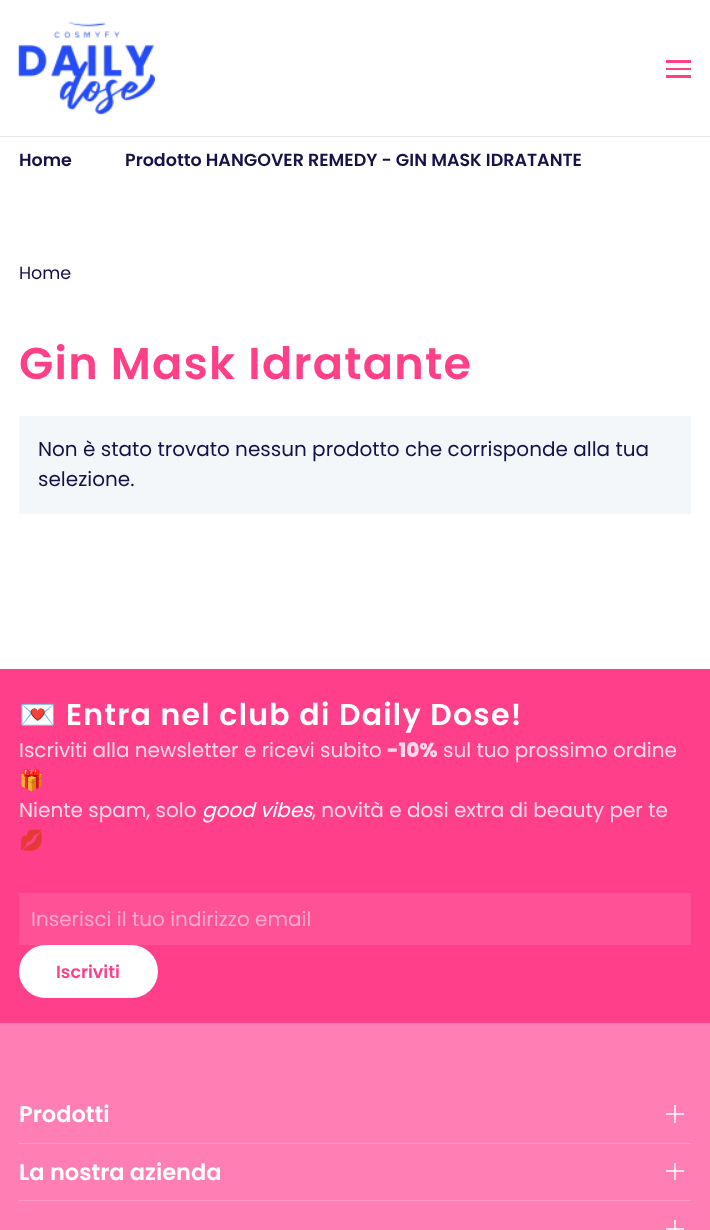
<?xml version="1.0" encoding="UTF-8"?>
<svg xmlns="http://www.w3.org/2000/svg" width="710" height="1230">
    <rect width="100%" height="100%" fill="#FFFFFF"/>
    <rect x="0" y="136" width="710" height="1" fill="#E7E8EB"/>
    <image x="18" y="21" width="137" height="95" href="img_01.png"/>
    <rect x="666" y="60" width="25" height="3" fill="#FF4089"/>
    <rect x="666" y="68" width="25" height="2" fill="#FF4089"/>
    <rect x="666" y="75" width="25" height="3" fill="#FF4089"/>
    <text x="19" y="166" font-family="Poppins" font-size="17.5" font-weight="600" fill="#15124A">Home</text>
    <text x="125" y="166" font-family="Poppins" font-size="17.5" font-weight="600" fill="#15124A">Prodotto HANGOVER REMEDY - GIN MASK IDRATANTE</text>
    <text x="19" y="279" font-family="Poppins" font-size="17.5" fill="#15124A">Home</text>
    <text x="19" y="379" font-family="Poppins" font-size="44.6" font-weight="600" letter-spacing="1.25" fill="#FF4089">Gin Mask Idratante</text>
    <rect x="19" y="416" width="672" height="98" fill="#F4F7FA"/>
    <text font-family="Poppins" font-size="20" fill="#15124A">
        <tspan x="38" y="456">Non è stato trovato nessun prodotto che corrisponde alla tua</tspan>
        <tspan x="38" y="486">selezione.</tspan>
    </text>
    <rect x="0" y="669" width="710" height="354" fill="#FF3F89"/>
    <text x="19" y="725" font-family="Noto Color Emoji" font-size="30" font-weight="700" letter-spacing="1.25" fill="#FFFFFF">💌</text>
    <text x="66" y="725" font-family="Poppins" font-size="30" font-weight="600" letter-spacing="1.25" fill="#FFFFFF">Entra nel club di Daily Dose!</text>
    <text x="19" y="757" font-family="Poppins" font-size="20" fill="#FFD9E7">Iscriviti alla newsletter e ricevi subito</text>
    <text x="387" y="757" font-family="Poppins" font-size="20" font-weight="800" fill="#FFD9E7">-10%</text>
    <text x="443" y="757" font-family="Poppins" font-size="20" fill="#FFD9E7">sul tuo prossimo ordine</text>
    <text x="19" y="787" font-family="Noto Color Emoji" font-size="20" fill="#FFD9E7">🎁</text>
    <text x="19" y="817" font-family="Poppins" font-size="20" fill="#FFD9E7">Niente spam, solo</text>
    <text x="202" y="817" font-family="Poppins" font-size="20" font-style="italic" fill="#FFFFFF">good vibes</text>
    <text x="312" y="817" font-family="Poppins" font-size="20" fill="#FFD9E7">, novità e dosi extra di beauty per te</text>
    <text x="19" y="847" font-family="Noto Color Emoji" font-size="20" fill="#FFD9E7">💋</text>
    <rect x="19" y="893" width="672" height="52" fill="#FF5295"/>
    <text x="31" y="926" font-family="Poppins" font-size="20" fill="#FFA9CA">Inserisci il tuo indirizzo email</text>
    <rect x="19" y="945" width="139" height="53" rx="26.5" fill="#FFFFFF"/>
    <text x="56" y="978" font-family="Poppins" font-size="17.5" font-weight="600" fill="#FF4089">Iscriviti</text>
    <rect x="0" y="1023" width="710" height="207" fill="#FF7FB5"/>
    <rect x="674" y="1220" width="2" height="10" fill="#FFE0ED"/>
    <rect x="674" y="1163" width="2" height="17" fill="#FFE0ED"/>
    <rect x="674" y="1105" width="2" height="18" fill="#FFE0ED"/>
    <text x="19" y="1122" font-family="Poppins" font-size="22.5" font-weight="600" fill="#FFFFFF">Prodotti</text>
    <rect x="666" y="1113" width="18" height="2" fill="#FFE0ED"/>
    <rect x="674" y="1113" width="2" height="2" fill="#FFF8FB"/>
    <rect x="19" y="1143" width="672" height="1" fill="#FF99C4"/>
    <text x="19" y="1180" font-family="Poppins" font-size="22.5" font-weight="600" fill="#FFFFFF">La nostra azienda</text>
    <rect x="666" y="1170" width="18" height="2" fill="#FFE0ED"/>
    <rect x="674" y="1170" width="2" height="2" fill="#FFF8FB"/>
    <rect x="19" y="1200" width="672" height="1" fill="#FF99C4"/>
    <rect x="666" y="1228" width="18" height="2" fill="#FFE0ED"/>
    <rect x="674" y="1228" width="2" height="2" fill="#FFF8FB"/>
</svg>
